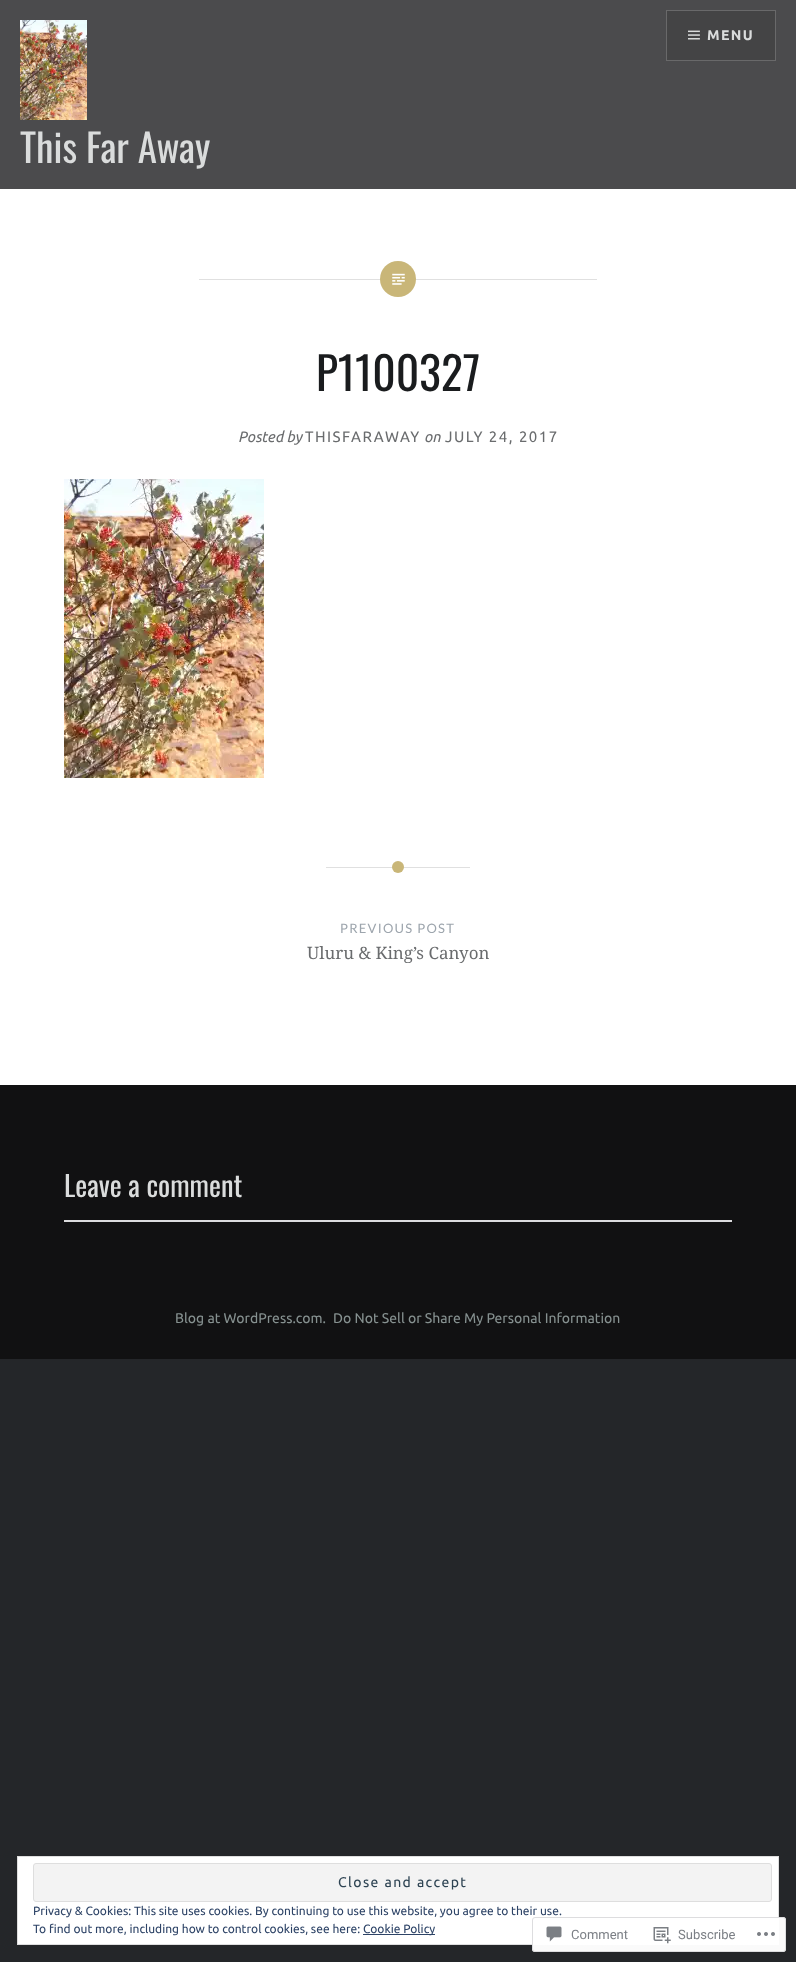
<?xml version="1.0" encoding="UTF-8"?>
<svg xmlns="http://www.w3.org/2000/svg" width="796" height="1962">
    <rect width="100%" height="100%" fill="#242629"/>
    <rect x="0" y="189" width="796" height="896" fill="#FFFFFF"/>
    <rect x="0" y="0" width="796" height="189" fill="#4B4B4D"/>
    <rect x="666.5" y="10.5" width="109" height="50" fill="#444445" stroke="#69696A"/>
    <image x="688" y="30" width="12" height="10" href="img_01.png"/>
    <text x="707" y="40" font-family="Ubuntu" font-size="14" font-weight="700" letter-spacing="1.4" fill="#DADCDC">MENU</text>
    <image x="20" y="20" width="67" height="100" href="img_02.png"/>
    <text x="20" y="163" font-family="Oswald" font-size="39" fill="#DADCDC">This Far Away</text>
    <rect x="199" y="279" width="398" height="1" fill="#E0E0E0"/>
    <circle cx="398" cy="279" r="18" fill="#C9B678"/>
    <image x="392" y="273" width="13" height="12" href="img_03.png"/>
    <image x="64" y="479" width="200" height="299" href="img_04.png"/>
    <text x="316" y="391" font-family="Oswald" font-size="45.5" fill="#1A1C1E">P1100327</text>
    <text x="238" y="442" font-family="Ubuntu" font-size="15" font-style="italic" fill="#6A6C6E">Posted by</text>
    <text x="305" y="442" font-family="Ubuntu" font-size="15" letter-spacing="1.5" fill="#6A6C6E">THISFARAWAY</text>
    <text x="424" y="442" font-family="Ubuntu" font-size="15" font-style="italic" fill="#6A6C6E">on</text>
    <text x="445" y="442" font-family="Ubuntu" font-size="15" letter-spacing="1.5" fill="#6A6C6E">JULY 24, 2017</text>
    <rect x="326" y="867" width="144" height="1" fill="#E0E0E0"/>
    <circle cx="398" cy="867" r="6" fill="#C9B678"/>
    <text x="340" y="933" font-family="Lato" font-size="13" letter-spacing="1.25" fill="#9DA5AD">PREVIOUS POST</text>
    <text x="307" y="959" font-family="Noto Serif" font-size="17" fill="#6A6C6E">Uluru &amp; King’s Canyon</text>
    <rect x="0" y="1085" width="796" height="274" fill="#111112"/>
    <text x="64" y="1197" font-family="Oswald" font-size="28.5" fill="#DADCDC">Leave a comment</text>
    <rect x="64" y="1220" width="668" height="2" fill="#DCDCDE"/>
    <text x="175" y="1323" font-family="Ubuntu" font-size="14" fill="#869190">Blog at WordPress.com.</text>
    <text x="333" y="1323" font-family="Ubuntu" font-size="14" fill="#869190">Do Not Sell or Share My Personal Information</text>
    <rect x="17.5" y="1856.5" width="761" height="88" fill="#FFFFFF" stroke="#DEDEDE"/>
    <rect x="33.5" y="1863.5" width="738" height="38" rx="2.5" fill="#F3F3F3" stroke="#DEDEDE"/>
    <text x="338" y="1887" font-family="Ubuntu" font-size="14" letter-spacing="1.4" fill="#2E4453">Close and accept</text>
    <text font-family="Ubuntu" font-size="12" fill="#2E4467">
        <tspan x="33" y="1915">Privacy &amp; Cookies: This site uses cookies. By continuing to use this website, you agree to their use.</tspan>
        <tspan x="33" y="1933">To find out more, including how to control cookies, see here:</tspan>
    </text>
    <rect x="363" y="1934" width="72" height="1" fill="#2E4467"/>
    <text x="363" y="1933" font-family="Ubuntu" font-size="12" fill="#2E4467">Cookie Policy</text>
    <rect x="532" y="1917" width="254" height="35" rx="3" fill="#FFFFFF" fill-opacity="0.98"/>
    <rect x="532.5" y="1917.5" width="253" height="34" rx="2.5" fill="none" stroke="#DCDCDE" stroke-opacity="0.98"/>
    <image x="546" y="1926" width="16" height="16" href="img_05.png"/>
    <text x="571" y="1939" font-family="Roboto" font-size="13" fill="#7B7F85">Comment</text>
    <image x="653" y="1927" width="18" height="17" href="img_06.png"/>
    <text x="678" y="1939" font-family="Roboto" font-size="13" fill="#7B7F85">Subscribe</text>
    <image x="757" y="1932" width="18" height="4" href="img_07.png"/>
</svg>
